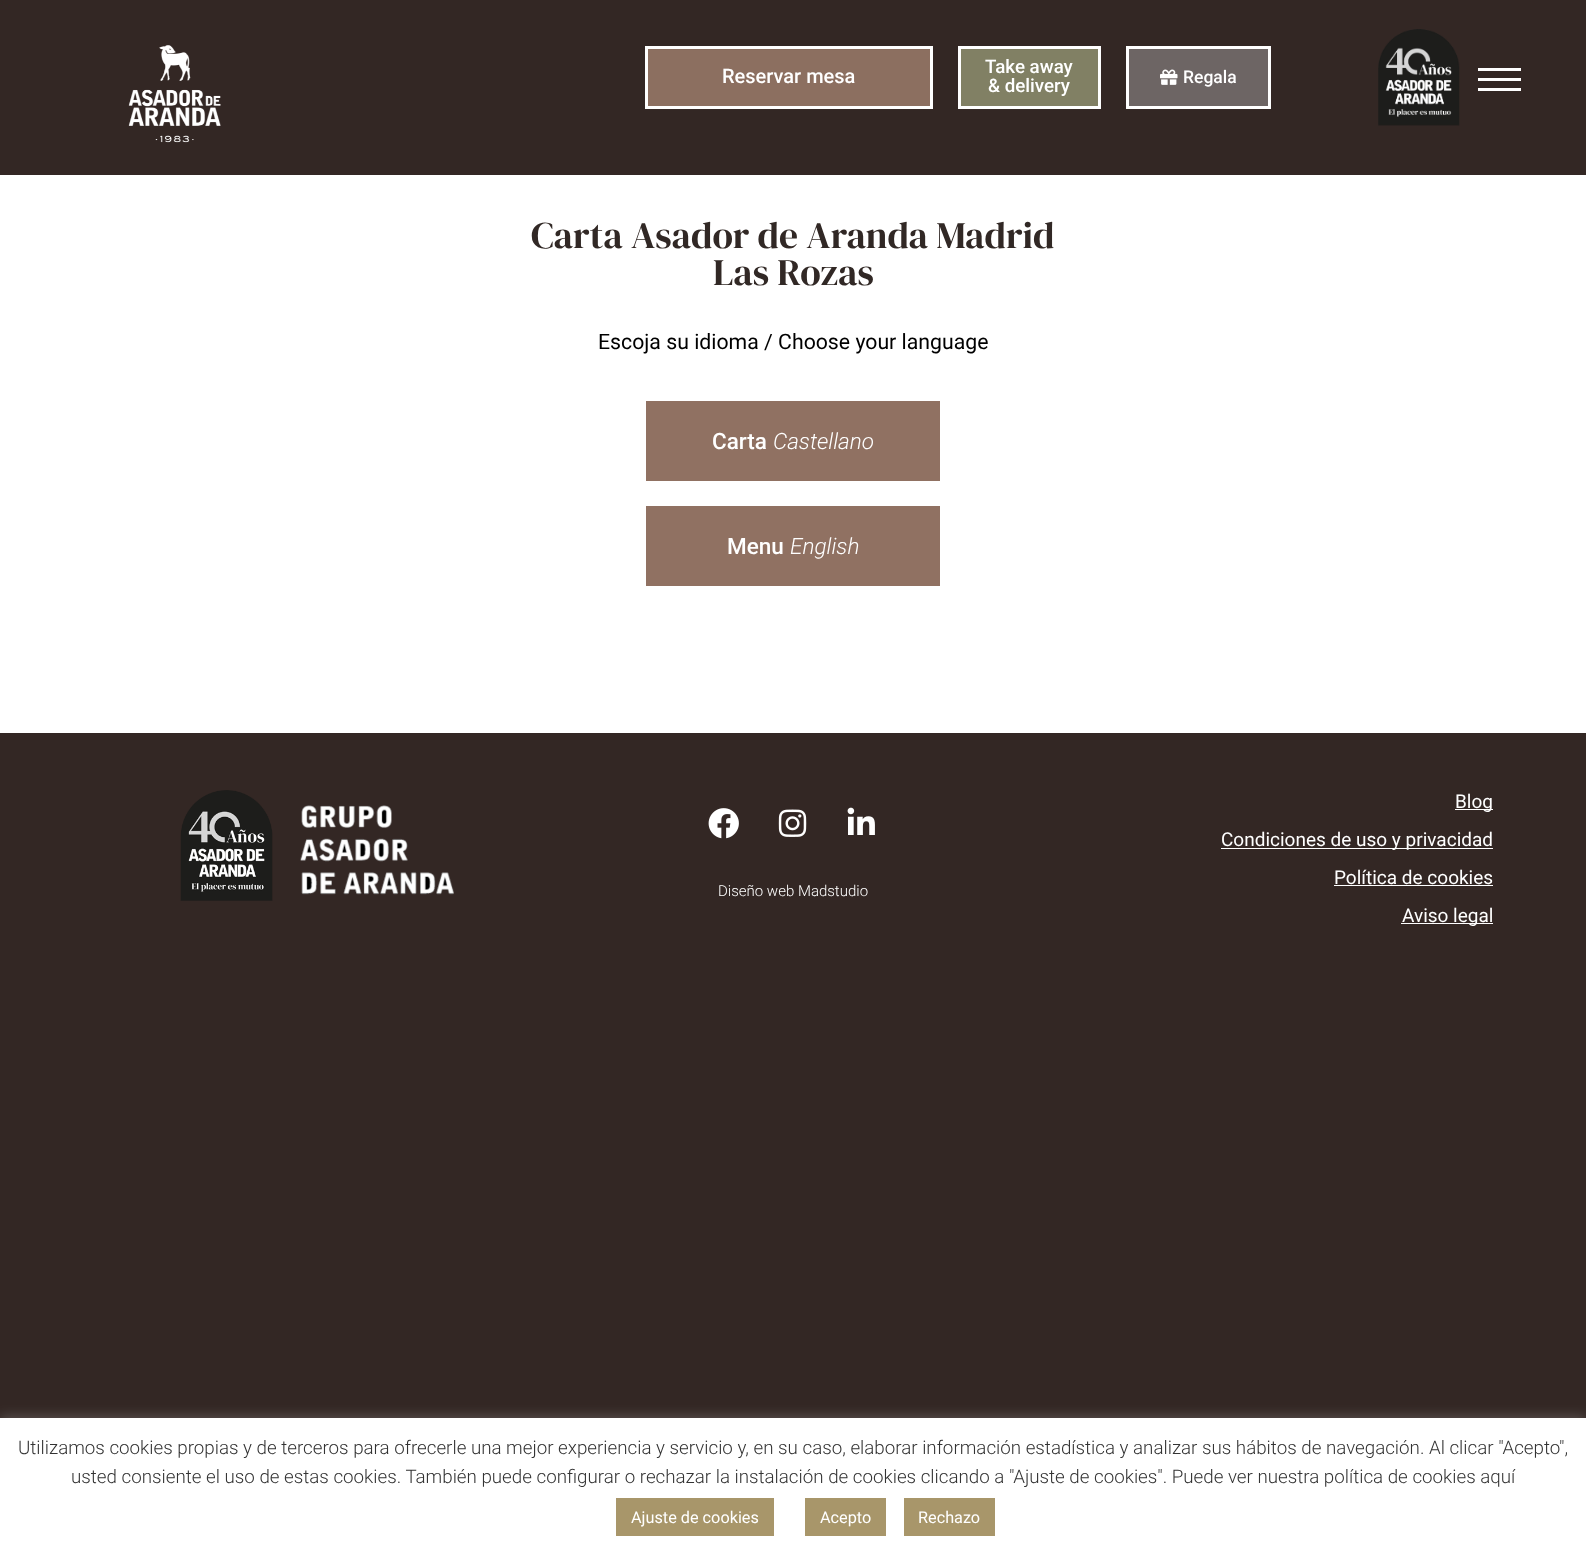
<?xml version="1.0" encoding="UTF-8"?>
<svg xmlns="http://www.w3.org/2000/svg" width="1586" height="1557">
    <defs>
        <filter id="blur1" x="-50%" y="-200%" width="200%" height="500%"><feGaussianBlur stdDeviation="6"/></filter>
    </defs>
    <rect width="100%" height="100%" fill="#332724"/>
    <image x="128" y="45" width="93" height="98" href="img_01.png"/>
    <rect x="646.5" y="47.5" width="285" height="60" fill="#8C6F60" stroke="#FFFFFF" stroke-width="3"/>
    <text x="722" y="83" font-family="Roboto" font-size="20" font-weight="500" fill="#FFFFFF">Reservar mesa</text>
    <rect x="959.5" y="47.5" width="140" height="60" fill="#818064" stroke="#FFFFFF" stroke-width="3"/>
    <text x="985" y="73" font-family="Roboto" font-size="18.75" font-weight="500" fill="#FFFFFF">Take away</text>
    <text x="988" y="92" font-family="Roboto" font-size="18.75" font-weight="500" fill="#FFFFFF">&amp; delivery</text>
    <rect x="1127.5" y="47.5" width="142" height="60" fill="#6D6564" stroke="#FFFFFF" stroke-width="3"/>
    <image x="1160" y="69" width="18" height="16" href="img_02.png"/>
    <text x="1183" y="83" font-family="Roboto" font-size="17.5" font-weight="500" fill="#FFFFFF">Regala</text>
    <image x="1378" y="29" width="82" height="97" href="img_03.png"/>
    <rect x="1478" y="68" width="43" height="3" fill="#FFFFFF"/>
    <rect x="1478" y="78" width="43" height="3" fill="#FFFFFF"/>
    <rect x="1478" y="88" width="43" height="3" fill="#FFFFFF"/>
    <rect x="0" y="175" width="1586" height="558" fill="#FFFFFF"/>
    <text x="531" y="248" font-family="DM Serif Display" font-size="37.5" fill="#312825">Carta Asador de Aranda Madrid</text>
    <text x="713" y="285" font-family="DM Serif Display" font-size="37.5" fill="#312825">Las Rozas</text>
    <text x="598" y="349" font-family="Roboto" font-size="21.25" fill="#000000">Escoja su idioma / Choose your language</text>
    <rect x="646" y="401" width="294" height="80" fill="#907162"/>
    <text x="712" y="449" font-family="Roboto" font-size="22.5" font-weight="500" fill="#FFFFFF">Carta</text>
    <text x="773" y="449" font-family="Roboto" font-size="22.5" font-weight="300" font-style="italic" fill="#FFFFFF">Castellano</text>
    <rect x="646" y="506" width="294" height="80" fill="#907162"/>
    <text x="727" y="554" font-family="Roboto" font-size="22.5" font-weight="500" fill="#FFFFFF">Menu</text>
    <text x="790" y="554" font-family="Roboto" font-size="22.5" font-weight="300" font-style="italic" fill="#FFFFFF">English</text>
    <image x="180" y="790" width="274" height="111" href="img_04.png"/>
    <image x="708" y="808" width="31" height="31" href="img_05.png"/>
    <image x="778" y="809" width="29" height="28" href="img_06.png"/>
    <image x="847" y="807" width="28" height="28" href="img_07.png"/>
    <text x="718" y="896" font-family="Roboto" font-size="15" font-weight="300" fill="#FFFFFF">Diseño web Madstudio</text>
    <rect x="1455" y="809" width="38" height="1" fill="#FFFFFF"/>
    <text x="1455" y="808" font-family="Roboto" font-size="19" fill="#FFFFFF">Blog</text>
    <rect x="1221" y="848" width="272" height="1" fill="#FFFFFF"/>
    <text x="1221" y="846" font-family="Roboto" font-size="19" fill="#FFFFFF">Condiciones de uso y privacidad</text>
    <text x="1334" y="884" font-family="Roboto" font-size="19" fill="#FFFFFF">Política de cookies</text>
    <rect x="1334" y="885" width="159" height="1" fill="#FFFFFF"/>
    <rect x="1401" y="923" width="92" height="1" fill="#FFFFFF"/>
    <text x="1402" y="922" font-family="Roboto" font-size="19" fill="#FFFFFF">Aviso legal</text>
    <rect x="0" y="1416" width="1586" height="140" fill="#ACABAB" fill-opacity="0.3" filter="url(#blur1)"/>
    <rect x="0" y="1418" width="1586" height="139" fill="#FFFFFF"/>
    <text x="18" y="1454" font-family="Roboto" font-size="18.75" font-weight="300" fill="#333333">Utilizamos cookies propias y de terceros para ofrecerle una mejor experiencia y servicio y, en su caso, elaborar información estadística y analizar sus hábitos de navegación. Al clicar "Acepto",</text>
    <text x="71" y="1483" font-family="Roboto" font-size="18.75" font-weight="300" fill="#333333">usted consiente el uso de estas cookies. También puede configurar o rechazar la instalación de cookies clicando a "Ajuste de cookies". Puede ver nuestra política de cookies aquí</text>
    <rect x="616" y="1498" width="158" height="38" fill="#A8966A"/>
    <text x="631" y="1523" font-family="Roboto" font-size="16.25" fill="#FFFFFF">Ajuste de cookies</text>
    <rect x="805" y="1498" width="81" height="38" fill="#A8966A"/>
    <text x="820" y="1523" font-family="Roboto" font-size="16.25" fill="#FFFFFF">Acepto</text>
    <rect x="904" y="1498" width="91" height="38" fill="#A8966A"/>
    <text x="918" y="1523" font-family="Roboto" font-size="16.25" fill="#FFFFFF">Rechazo</text>
</svg>
